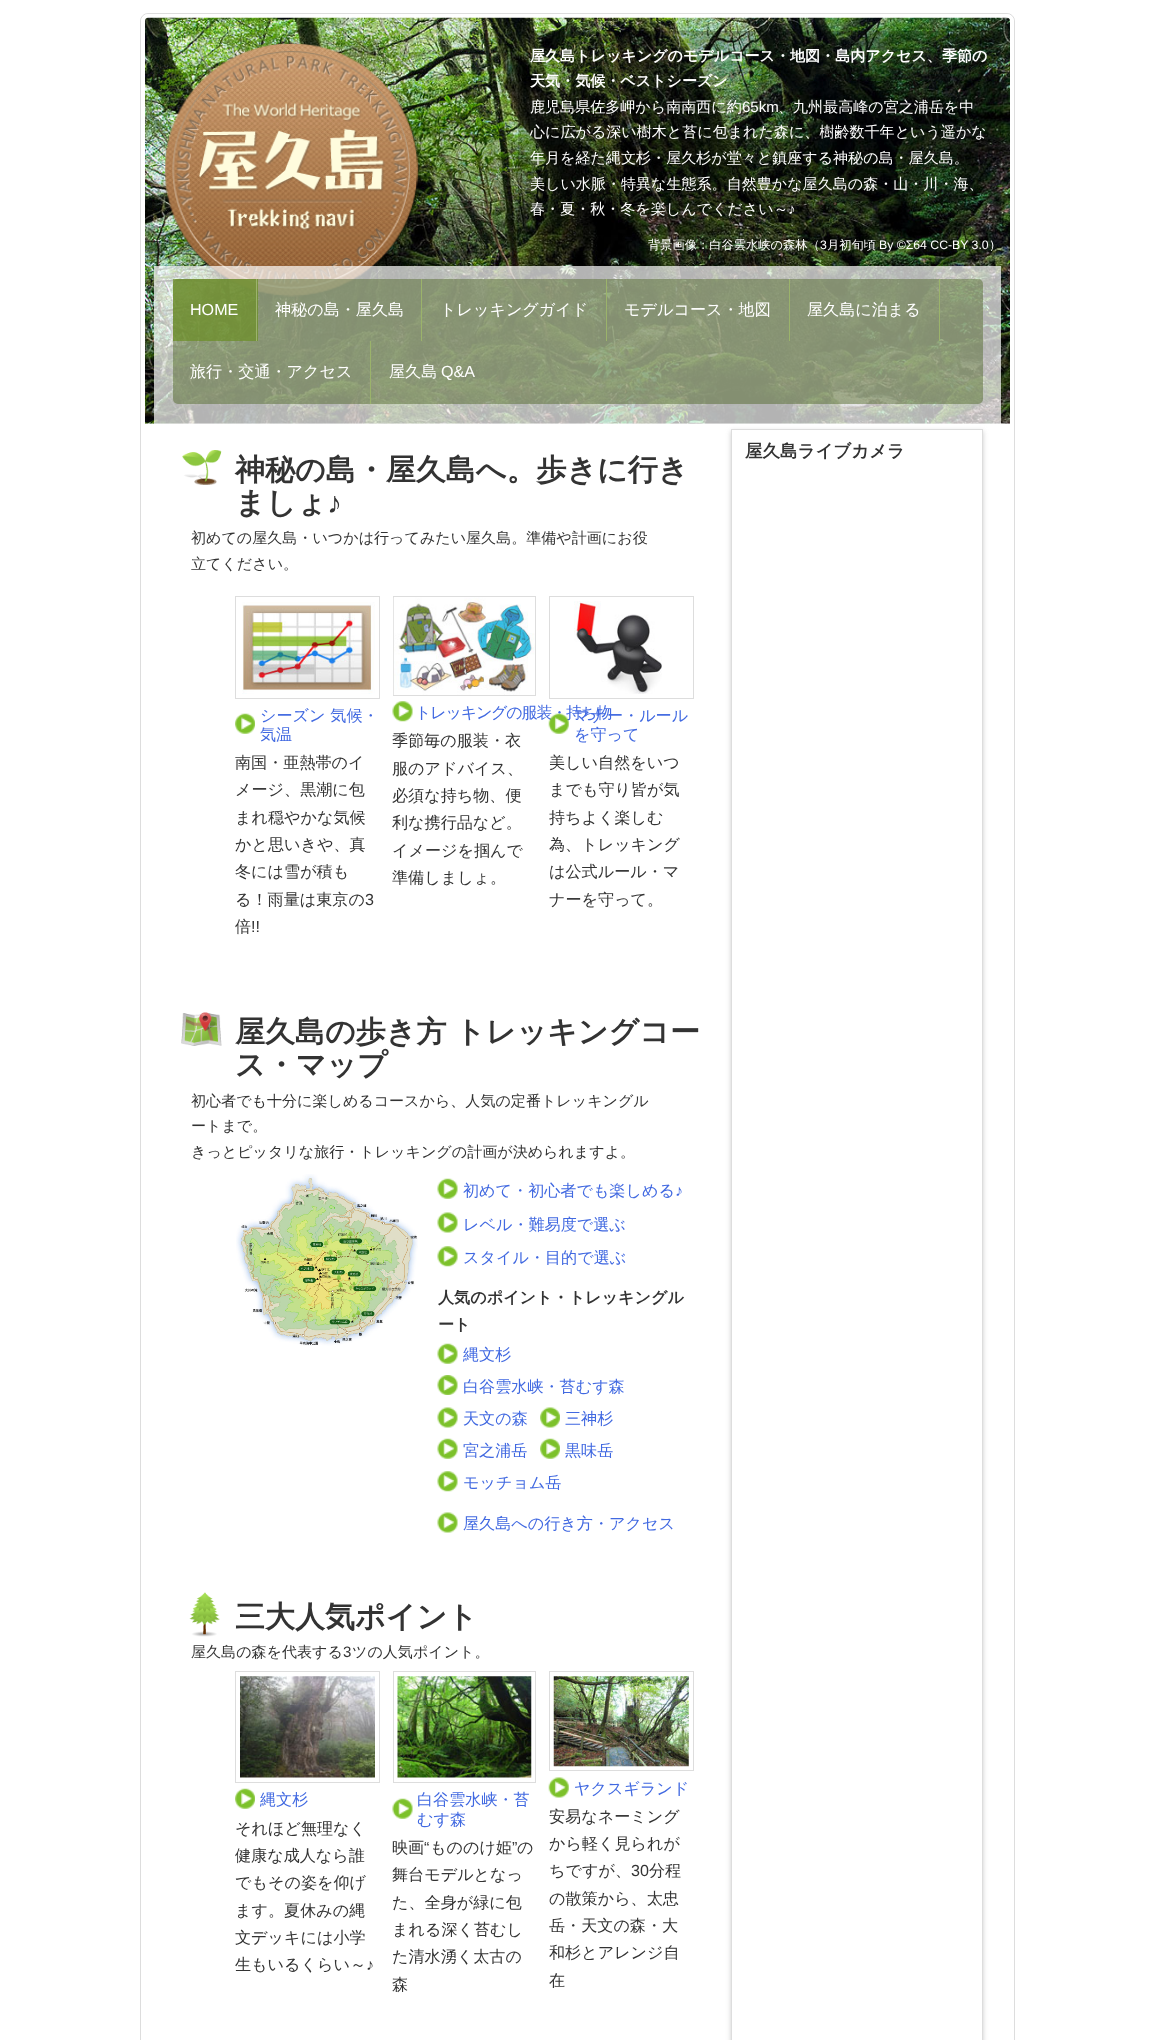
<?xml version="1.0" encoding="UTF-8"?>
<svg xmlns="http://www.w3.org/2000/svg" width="1154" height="2040">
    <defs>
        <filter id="blur1" x="-50%" y="-200%" width="200%" height="500%"><feGaussianBlur stdDeviation="2.5"/></filter>
    </defs>
    <rect width="100%" height="100%" fill="#FFFFFF"/>
    <rect x="140.5" y="13.5" width="874" height="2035" rx="7.5" fill="none" stroke="#DDDDDD"/>
    <path d="M 149 14 H 1006 C 1010.5 14 1014 17.5 1014 22 V 428 H 141 V 22 C 141 17.5 144.5 14 149 14 Z" fill="#FFFFFF"/>
    <image x="145" y="17" width="865" height="407" href="img_01.png"/>
    <image x="165" y="43" width="257" height="258" href="img_02.png"/>
    <rect x="518" y="31" width="483" height="204" rx="8" fill="#000000" fill-opacity="0.2"/>
    <text font-family="WenQuanYi Zen Hei" font-size="15.05" font-weight="700" fill="#FFFFFF">
        <tspan x="530" y="61">屋久島トレッキングのモデルコース・地図・島内アクセス、季節の</tspan>
        <tspan x="530" y="86">天気・気候・ベストシーズン</tspan>
    </text>
    <text x="530" y="112" font-family="WenQuanYi Zen Hei" font-size="15.05" font-weight="500" fill="#FFFFFF">鹿児島県佐多岬から南南西に約</text>
    <text x="742" y="112" font-family="Liberation Sans" font-size="15.05" fill="#FFFFFF">65km</text>
    <text x="778" y="112" font-family="WenQuanYi Zen Hei" font-size="15.05" font-weight="500" fill="#FFFFFF">、九州最高峰の宮之浦岳を中</text>
    <text font-family="WenQuanYi Zen Hei" font-size="15.05" font-weight="500" fill="#FFFFFF">
        <tspan x="530" y="137">心に広がる深い樹木と苔に包まれた森に、樹齢数千年という遥かな</tspan>
        <tspan x="530" y="163">年月を経た縄文杉・屋久杉が堂々と鎮座する神秘の島・屋久島。</tspan>
        <tspan x="530" y="189">美しい水脈・特異な生態系。自然豊かな屋久島の森・山・川・海、</tspan>
        <tspan x="530" y="214">春・夏・秋・冬を楽しんでください～</tspan>
    </text>
    <text x="788" y="214" font-family="Liberation Sans" font-size="15.05" fill="#FFFFFF">♪</text>
    <text x="648" y="249" font-family="WenQuanYi Zen Hei" font-size="12.25" font-weight="500" fill="#FFFFFF">背景画像：白谷雲水峡の森林（</text>
    <text x="820" y="249" font-family="Liberation Sans" font-size="12.25" fill="#FFFFFF">3</text>
    <text x="827" y="249" font-family="WenQuanYi Zen Hei" font-size="12.25" font-weight="500" fill="#FFFFFF">月初旬頃</text>
    <text x="879" y="249" font-family="Liberation Sans" font-size="12.25" fill="#FFFFFF">By ©Σ64 CC-BY 3.0</text>
    <text x="989" y="249" font-family="WenQuanYi Zen Hei" font-size="12.25" font-weight="500" fill="#FFFFFF">）</text>
    <rect x="154" y="266" width="847" height="158" fill="#FFFFFF" fill-opacity="0.7"/>
    <rect x="173" y="279" width="810" height="125" rx="5" fill="#556B2F" fill-opacity="0.5"/>
    <rect x="173" y="279" width="85" height="62" fill="#6B8E23" fill-opacity="0.7"/>
    <rect x="256" y="279" width="1" height="62" fill="#9BB36B"/>
    <text x="190" y="315" font-family="Liberation Sans" font-size="16.1" fill="#FFFFFF">HOME</text>
    <rect x="421" y="279" width="1" height="62" fill="#9BB36B"/>
    <text x="275" y="315" font-family="WenQuanYi Zen Hei" font-size="16.1" font-weight="500" fill="#FFFFFF">神秘の島・屋久島</text>
    <rect x="606" y="279" width="1" height="62" fill="#9BB36B"/>
    <text x="440" y="315" font-family="WenQuanYi Zen Hei" font-size="16.1" font-weight="500" fill="#FFFFFF">トレッキングガイド</text>
    <rect x="789" y="279" width="1" height="62" fill="#9BB36B"/>
    <text x="624" y="315" font-family="WenQuanYi Zen Hei" font-size="16.1" font-weight="500" fill="#FFFFFF">モデルコース・地図</text>
    <rect x="939" y="279" width="1" height="62" fill="#9BB36B"/>
    <text x="807" y="315" font-family="WenQuanYi Zen Hei" font-size="16.1" font-weight="500" fill="#FFFFFF">屋久島に泊まる</text>
    <rect x="370" y="341" width="1" height="63" fill="#9BB36B"/>
    <text x="190" y="377" font-family="WenQuanYi Zen Hei" font-size="16.1" font-weight="500" fill="#FFFFFF">旅行・交通・アクセス</text>
    <text x="389" y="377" font-family="WenQuanYi Zen Hei" font-size="16.1" font-weight="500" fill="#FFFFFF">屋久島</text>
    <text x="441" y="377" font-family="Liberation Sans" font-size="16.1" fill="#FFFFFF">Q&amp;A</text>
    <rect x="731" y="431" width="252" height="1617" fill="#CCCCCC" filter="url(#blur1)"/>
    <rect x="731.5" y="429.5" width="251" height="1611" fill="#FFFFFF" stroke="#DDDDDD"/>
    <text x="745" y="457" font-family="WenQuanYi Zen Hei" font-size="17.5" font-weight="700" fill="#333333">屋久島ライブカメラ</text>
    <image x="182" y="450" width="40" height="35" href="img_03.png"/>
    <text font-family="WenQuanYi Zen Hei" font-size="30" font-weight="700" fill="#333333">
        <tspan x="235" y="480">神秘の島・屋久島へ。歩きに行き</tspan>
        <tspan x="235" y="513">ましょ</tspan>
    </text>
    <text x="327" y="513" font-family="Liberation Sans" font-size="30" font-weight="700" fill="#333333">♪</text>
    <text font-family="WenQuanYi Zen Hei" font-size="15.05" font-weight="500" fill="#333333">
        <tspan x="191" y="543">初めての屋久島・いつかは行ってみたい屋久島。準備や計画にお役</tspan>
        <tspan x="191" y="569">立てください。</tspan>
    </text>
    <rect x="235.5" y="596.5" width="144" height="102" fill="none" stroke="#DDDDDD"/>
    <image x="242" y="602" width="133" height="92" href="img_04.png"/>
    <image x="235" y="713" width="20" height="21" href="img_05.png"/>
    <text font-family="WenQuanYi Zen Hei" font-size="16.1" font-weight="500" fill="#4169E1">
        <tspan x="260" y="721">シーズン 気候・</tspan>
        <tspan x="260" y="740">気温</tspan>
    </text>
    <text font-family="WenQuanYi Zen Hei" font-size="16.1" font-weight="500" fill="#333333">
        <tspan x="235" y="768">南国・亜熱帯のイ</tspan>
        <tspan x="235" y="795">メージ、黒潮に包</tspan>
        <tspan x="235" y="823">まれ穏やかな気候</tspan>
        <tspan x="235" y="850">かと思いきや、真</tspan>
        <tspan x="235" y="877">冬には雪が積も</tspan>
        <tspan x="235" y="905">る！雨量は東京の</tspan>
    </text>
    <text x="365" y="905" font-family="Liberation Sans" font-size="16.1" fill="#333333">3</text>
    <text x="235" y="932" font-family="WenQuanYi Zen Hei" font-size="16.1" font-weight="500" fill="#333333">倍</text>
    <text x="251" y="932" font-family="Liberation Sans" font-size="16.1" fill="#333333">!!</text>
    <rect x="393.5" y="596.5" width="142" height="99" fill="none" stroke="#DDDDDD"/>
    <image x="393" y="597" width="142" height="98" href="img_06.png"/>
    <image x="392" y="701" width="21" height="21" href="img_07.png"/>
    <text x="415" y="718" font-family="WenQuanYi Zen Hei" font-size="16.1" font-weight="500" letter-spacing="-1.25" fill="#4169E1">トレッキングの服装・持ち物</text>
    <text font-family="WenQuanYi Zen Hei" font-size="16.1" font-weight="500" fill="#333333">
        <tspan x="392" y="746">季節毎の服装・衣</tspan>
        <tspan x="392" y="774">服のアドバイス、</tspan>
        <tspan x="392" y="801">必須な持ち物、便</tspan>
        <tspan x="392" y="828">利な携行品など。</tspan>
        <tspan x="392" y="856">イメージを掴んで</tspan>
        <tspan x="392" y="883">準備しましょ。</tspan>
    </text>
    <rect x="549.5" y="596.5" width="144" height="102" fill="none" stroke="#DDDDDD"/>
    <image x="574" y="601" width="88" height="93" href="img_08.png"/>
    <image x="548" y="713" width="21" height="21" href="img_09.png"/>
    <text font-family="WenQuanYi Zen Hei" font-size="16.1" font-weight="500" fill="#4169E1">
        <tspan x="574" y="721">マナー・ルール</tspan>
        <tspan x="574" y="740">を守って</tspan>
    </text>
    <text font-family="WenQuanYi Zen Hei" font-size="16.1" font-weight="500" fill="#333333">
        <tspan x="549" y="768">美しい自然をいつ</tspan>
        <tspan x="549" y="795">までも守り皆が気</tspan>
        <tspan x="549" y="823">持ちよく楽しむ</tspan>
        <tspan x="549" y="850">為、トレッキング</tspan>
        <tspan x="549" y="877">は公式ルール・マ</tspan>
        <tspan x="549" y="905">ナーを守って。</tspan>
    </text>
    <image x="181" y="1012" width="41" height="34" href="img_10.png"/>
    <text x="235" y="1042" font-family="WenQuanYi Zen Hei" font-size="30" font-weight="700" fill="#333333">屋久島の歩き方</text>
    <text x="455" y="1042" font-family="WenQuanYi Zen Hei" font-size="30" font-weight="700" fill="#333333">トレッキングコー</text>
    <text x="235" y="1075" font-family="WenQuanYi Zen Hei" font-size="30" font-weight="700" fill="#333333">ス・マップ</text>
    <text font-family="WenQuanYi Zen Hei" font-size="15.05" font-weight="500" fill="#333333">
        <tspan x="191" y="1106">初心者でも十分に楽しめるコースから、人気の定番トレッキングル</tspan>
        <tspan x="191" y="1131">ートまで。</tspan>
        <tspan x="191" y="1157">きっとピッタリな旅行・トレッキングの計画が決められますよ。</tspan>
    </text>
    <image x="236" y="1174" width="182" height="172" href="img_11.png"/>
    <image x="437" y="1178" width="21" height="21" href="img_12.png"/>
    <text x="463" y="1196" font-family="WenQuanYi Zen Hei" font-size="16.1" font-weight="500" fill="#4169E1">初めて・初心者でも楽しめる</text>
    <text x="675" y="1196" font-family="Liberation Sans" font-size="16.1" fill="#4169E1">♪</text>
    <image x="437" y="1212" width="21" height="21" href="img_13.png"/>
    <text x="463" y="1230" font-family="WenQuanYi Zen Hei" font-size="16.1" font-weight="500" fill="#4169E1">レベル・難易度で選ぶ</text>
    <image x="437" y="1246" width="21" height="21" href="img_14.png"/>
    <text x="463" y="1263" font-family="WenQuanYi Zen Hei" font-size="16.1" font-weight="500" fill="#4169E1">スタイル・目的で選ぶ</text>
    <text font-family="WenQuanYi Zen Hei" font-size="16.1" font-weight="700" fill="#333333">
        <tspan x="438" y="1303">人気のポイント・トレッキングル</tspan>
        <tspan x="438" y="1330">ート</tspan>
    </text>
    <image x="437" y="1343" width="21" height="21" href="img_12.png"/>
    <text x="463" y="1360" font-family="WenQuanYi Zen Hei" font-size="16.1" font-weight="500" fill="#4169E1">縄文杉</text>
    <image x="437" y="1375" width="21" height="20" href="img_15.png"/>
    <text x="463" y="1392" font-family="WenQuanYi Zen Hei" font-size="16.1" font-weight="500" fill="#4169E1">白谷雲水峡・苔むす森</text>
    <image x="437" y="1407" width="21" height="21" href="img_13.png"/>
    <text x="463" y="1424" font-family="WenQuanYi Zen Hei" font-size="16.1" font-weight="500" fill="#4169E1">天文の森</text>
    <image x="540" y="1407" width="20" height="21" href="img_16.png"/>
    <text x="565" y="1424" font-family="WenQuanYi Zen Hei" font-size="16.1" font-weight="500" fill="#4169E1">三神杉</text>
    <image x="437" y="1438" width="21" height="21" href="img_12.png"/>
    <text x="463" y="1456" font-family="WenQuanYi Zen Hei" font-size="16.1" font-weight="500" fill="#4169E1">宮之浦岳</text>
    <image x="540" y="1438" width="20" height="21" href="img_17.png"/>
    <text x="565" y="1456" font-family="WenQuanYi Zen Hei" font-size="16.1" font-weight="500" fill="#4169E1">黒味岳</text>
    <image x="437" y="1471" width="21" height="21" href="img_14.png"/>
    <text x="463" y="1488" font-family="WenQuanYi Zen Hei" font-size="16.1" font-weight="500" fill="#4169E1">モッチョム岳</text>
    <image x="437" y="1512" width="21" height="21" href="img_13.png"/>
    <text x="463" y="1529" font-family="WenQuanYi Zen Hei" font-size="16.1" font-weight="500" fill="#4169E1">屋久島への行き方・アクセス</text>
    <image x="189" y="1592" width="31" height="45" href="img_18.png"/>
    <text x="235" y="1627" font-family="WenQuanYi Zen Hei" font-size="30" font-weight="700" fill="#333333">三大人気ポイント</text>
    <text x="191" y="1657" font-family="WenQuanYi Zen Hei" font-size="15.05" font-weight="500" fill="#333333">屋久島の森を代表する</text>
    <text x="343" y="1657" font-family="Liberation Sans" font-size="15.05" fill="#333333">3</text>
    <text x="352" y="1657" font-family="WenQuanYi Zen Hei" font-size="15.05" font-weight="500" fill="#333333">ツの人気ポイント。</text>
    <rect x="235.5" y="1671.5" width="144" height="111" fill="none" stroke="#DDDDDD"/>
    <image x="240" y="1676" width="135" height="102" href="img_19.png"/>
    <image x="235" y="1788" width="20" height="21" href="img_05.png"/>
    <text x="260" y="1805" font-family="WenQuanYi Zen Hei" font-size="16.1" font-weight="500" fill="#4169E1">縄文杉</text>
    <text font-family="WenQuanYi Zen Hei" font-size="16.1" font-weight="500" fill="#333333">
        <tspan x="235" y="1834">それほど無理なく</tspan>
        <tspan x="235" y="1861">健康な成人なら誰</tspan>
        <tspan x="235" y="1888">でもその姿を仰げ</tspan>
        <tspan x="235" y="1916">ます。夏休みの縄</tspan>
        <tspan x="235" y="1943">文デッキには小学</tspan>
        <tspan x="235" y="1970">生もいるくらい～</tspan>
    </text>
    <text x="366" y="1970" font-family="Liberation Sans" font-size="16.1" fill="#333333">♪</text>
    <rect x="393.5" y="1671.5" width="142" height="111" fill="none" stroke="#DDDDDD"/>
    <image x="397" y="1676" width="135" height="102" href="img_20.png"/>
    <image x="392" y="1798" width="21" height="21" href="img_21.png"/>
    <text font-family="WenQuanYi Zen Hei" font-size="16.1" font-weight="500" fill="#4169E1">
        <tspan x="417" y="1805">白谷雲水峡・苔</tspan>
        <tspan x="417" y="1825">むす森</tspan>
    </text>
    <text x="392" y="1853" font-family="WenQuanYi Zen Hei" font-size="16.1" font-weight="500" fill="#333333">映画</text>
    <text x="424" y="1853" font-family="Liberation Sans" font-size="16.1" fill="#333333">“</text>
    <text x="430" y="1853" font-family="WenQuanYi Zen Hei" font-size="16.1" font-weight="500" fill="#333333">もののけ姫</text>
    <text x="512" y="1853" font-family="Liberation Sans" font-size="16.1" fill="#333333">”</text>
    <text x="517" y="1853" font-family="WenQuanYi Zen Hei" font-size="16.1" font-weight="500" fill="#333333">の</text>
    <text font-family="WenQuanYi Zen Hei" font-size="16.1" font-weight="500" fill="#333333">
        <tspan x="392" y="1880">舞台モデルとなっ</tspan>
        <tspan x="392" y="1908">た、全身が緑に包</tspan>
        <tspan x="392" y="1935">まれる深く苔むし</tspan>
        <tspan x="392" y="1962">た清水湧く太古の</tspan>
        <tspan x="392" y="1990">森</tspan>
    </text>
    <rect x="549.5" y="1671.5" width="144" height="99" fill="none" stroke="#DDDDDD"/>
    <image x="553" y="1676" width="136" height="91" href="img_22.png"/>
    <image x="548" y="1777" width="21" height="21" href="img_23.png"/>
    <text x="574" y="1794" font-family="WenQuanYi Zen Hei" font-size="16.1" font-weight="500" fill="#4169E1">ヤクスギランド</text>
    <text font-family="WenQuanYi Zen Hei" font-size="16.1" font-weight="500" fill="#333333">
        <tspan x="549" y="1822">安易なネーミング</tspan>
        <tspan x="549" y="1849">から軽く見られが</tspan>
        <tspan x="549" y="1876">ちですが、</tspan>
    </text>
    <text x="631" y="1876" font-family="Liberation Sans" font-size="16.1" fill="#333333">30</text>
    <text x="649" y="1876" font-family="WenQuanYi Zen Hei" font-size="16.1" font-weight="500" fill="#333333">分程</text>
    <text font-family="WenQuanYi Zen Hei" font-size="16.1" font-weight="500" fill="#333333">
        <tspan x="549" y="1904">の散策から、太忠</tspan>
        <tspan x="549" y="1931">岳・天文の森・大</tspan>
        <tspan x="549" y="1958">和杉とアレンジ自</tspan>
        <tspan x="549" y="1986">在</tspan>
    </text>
</svg>
